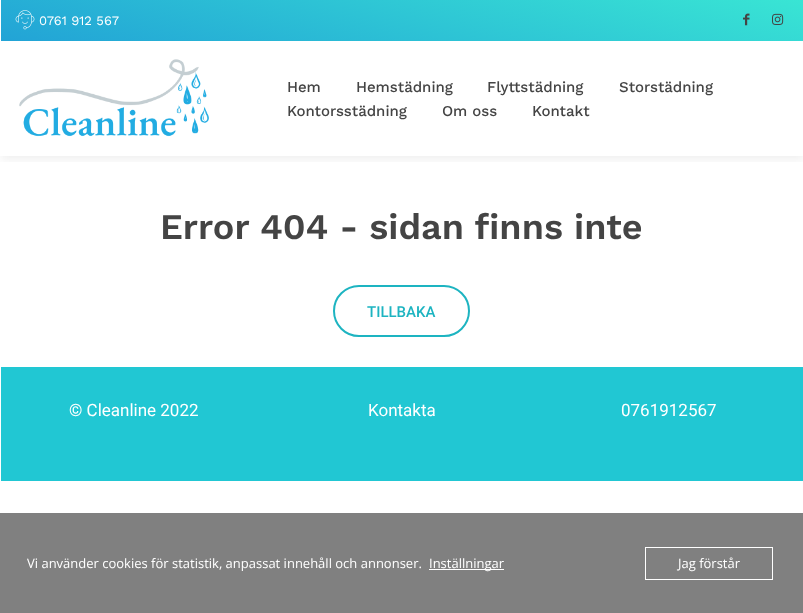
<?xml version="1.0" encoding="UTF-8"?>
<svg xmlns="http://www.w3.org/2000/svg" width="803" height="613">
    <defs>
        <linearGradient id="g1" gradientUnits="userSpaceOnUse" x1="370" y1="140" x2="434" y2="-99"><stop offset="0" stop-color="#22A3D6"/><stop offset="1" stop-color="#39E5D4"/></linearGradient>
        <clipPath id="clip1"><rect x="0" y="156" width="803" height="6"/></clipPath>
        <filter id="blur1" x="-50%" y="-200%" width="200%" height="500%"><feGaussianBlur stdDeviation="5"/></filter>
    </defs>
    <rect width="100%" height="100%" fill="#FFFFFF"/>
    <rect x="1" y="0" width="802" height="41" fill="url(#g1)"/>
    <image x="15" y="10" width="20" height="20" href="img_01.png"/>
    <image x="743" y="13" width="7" height="13" href="img_02.png"/>
    <image x="772" y="13" width="12" height="12" href="img_03.png"/>
    <image x="19" y="59" width="190" height="78" href="img_04.png"/>
    <g clip-path="url(#clip1)">
        <rect x="1" y="4" width="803" height="156" fill="#000000" fill-opacity="0.06" filter="url(#blur1)"/>
    </g>
    <text x="39" y="25" font-family="Work Sans" font-size="13" fill="#FFFFFF">0761 912 567</text>
    <text x="287" y="92" font-family="Work Sans" font-size="15" font-weight="500" fill="#444444">Hem</text>
    <text x="356" y="92" font-family="Work Sans" font-size="15" font-weight="500" fill="#444444">Hemstädning</text>
    <text x="487" y="92" font-family="Work Sans" font-size="15" font-weight="500" fill="#444444">Flyttstädning</text>
    <text x="619" y="92" font-family="Work Sans" font-size="15" font-weight="500" fill="#444444">Storstädning</text>
    <text x="287" y="116" font-family="Work Sans" font-size="15" font-weight="500" fill="#444444">Kontorsstädning</text>
    <text x="442" y="116" font-family="Work Sans" font-size="15" font-weight="500" fill="#444444">Om oss</text>
    <text x="532" y="116" font-family="Work Sans" font-size="15" font-weight="500" fill="#444444">Kontakt</text>
    <text x="160" y="239" font-family="Work Sans" font-size="36" font-weight="600" fill="#444444">Error 404 - sidan finns inte</text>
    <rect x="334" y="286" width="135" height="50" rx="25" fill="none" stroke="#1DB4C1" stroke-width="2"/>
    <text x="367" y="317" font-family="Roboto" font-size="15" font-weight="500" fill="#1DB4C1">TILLBAKA</text>
    <rect x="1" y="367" width="802" height="114" fill="#21C7D3"/>
    <text x="69" y="416" font-family="Roboto" font-size="17" fill="#FFFFFF">© Cleanline 2022</text>
    <text x="368" y="416" font-family="Roboto" font-size="17" fill="#FFFFFF">Kontakta</text>
    <text x="621" y="416" font-family="Roboto" font-size="17" fill="#FFFFFF">0761912567</text>
    <rect x="0" y="513" width="803" height="100" fill="#808080"/>
    <text x="27" y="568" font-family="Open Sans" font-size="13" fill="#FFFFFF">Vi använder cookies för statistik, anpassat innehåll och annonser.</text>
    <rect x="429" y="569" width="75" height="1" fill="#FFFFFF"/>
    <text x="429" y="568" font-family="Open Sans" font-size="13" fill="#FFFFFF">Inställningar</text>
    <rect x="645.5" y="547.5" width="127" height="32" fill="none" stroke="#FFFFFF"/>
    <text x="678" y="568" font-family="Open Sans" font-size="13" fill="#FFFFFF">Jag förstår</text>
</svg>
